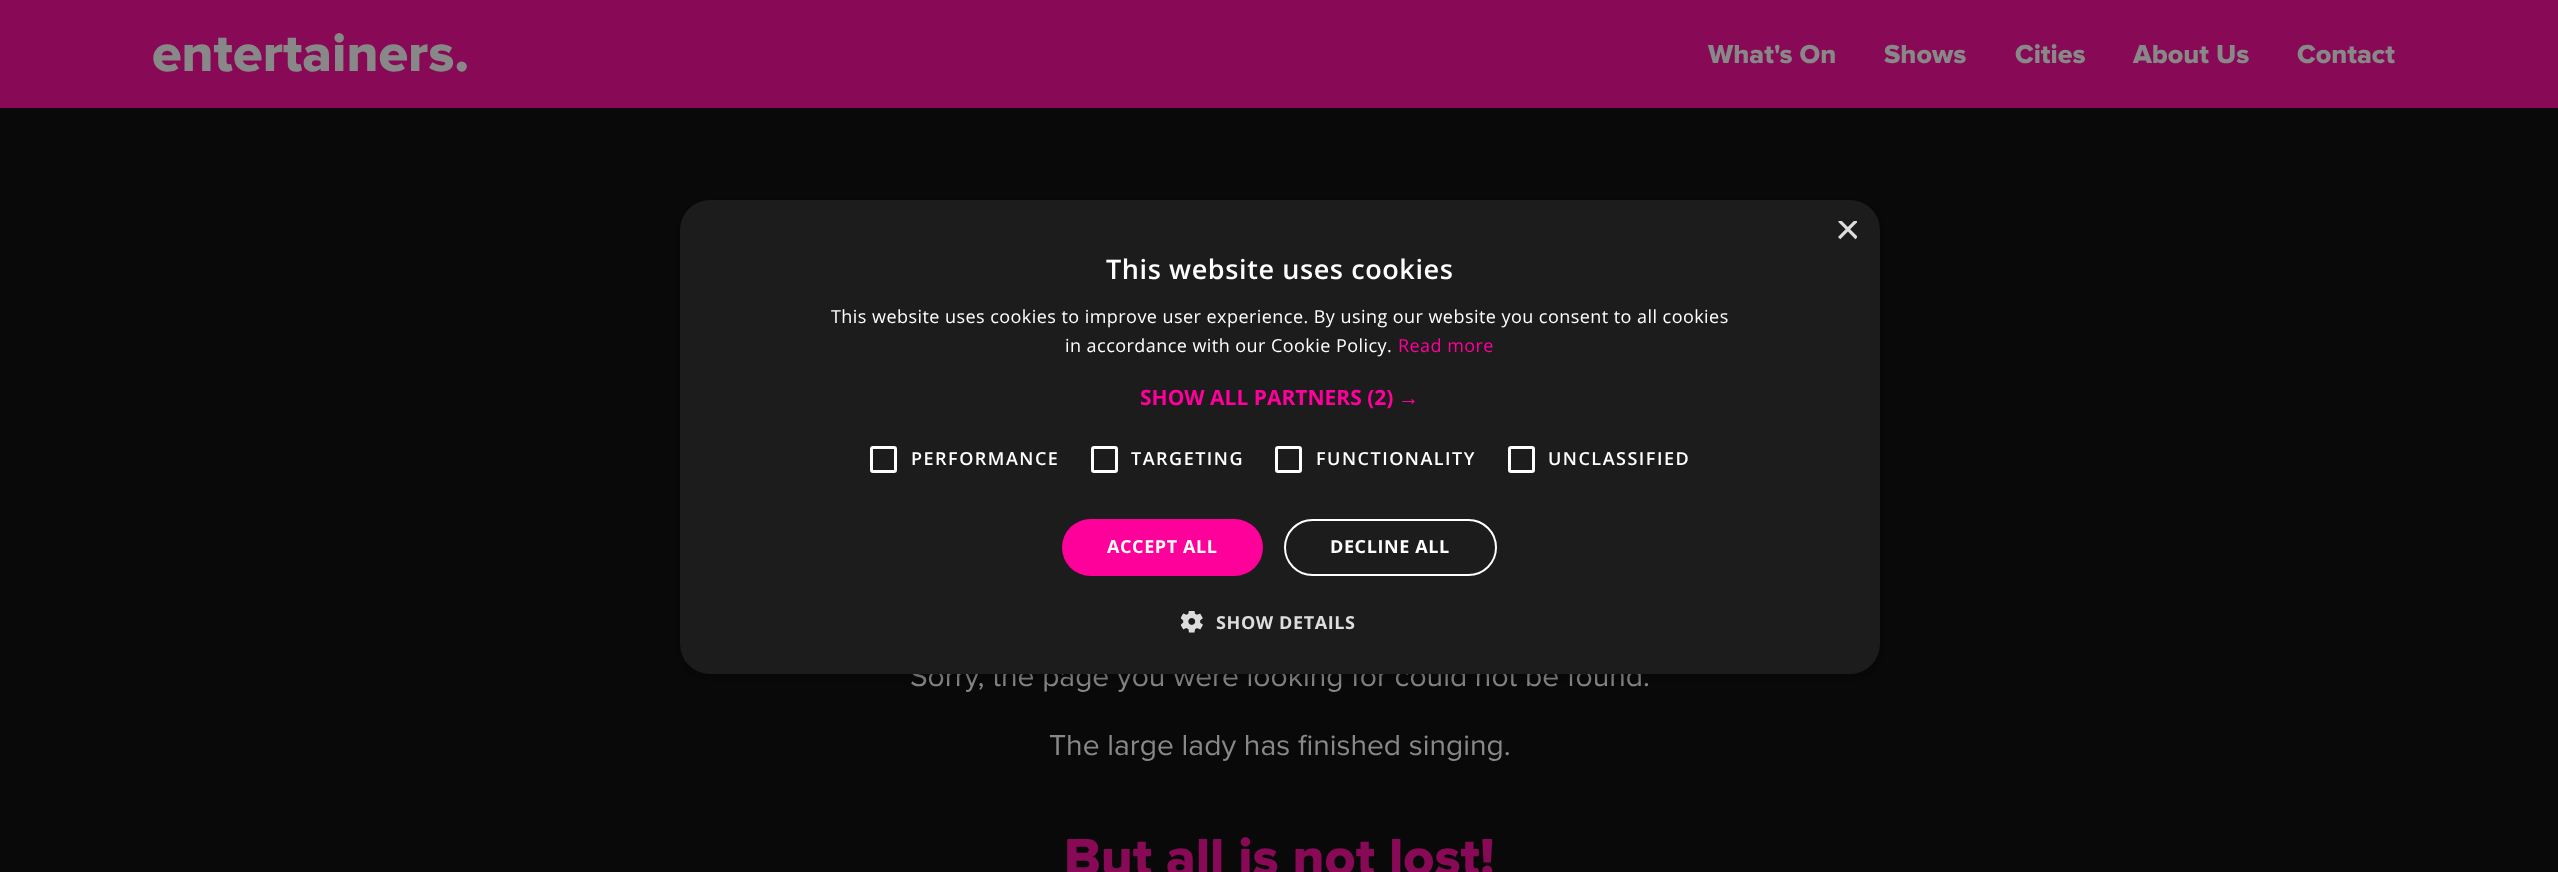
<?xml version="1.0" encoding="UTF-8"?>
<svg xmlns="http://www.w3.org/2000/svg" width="2558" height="872">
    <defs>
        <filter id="blur1" x="-50%" y="-200%" width="200%" height="500%"><feGaussianBlur stdDeviation="6"/></filter>
        <clipPath id="clip1"><rect x="1835" y="221" width="22" height="22"/></clipPath>
    </defs>
    <rect width="100%" height="100%" fill="#090909"/>
    <rect x="0" y="0" width="2558" height="108" fill="#880956"/>
    <text x="152" y="71" font-family="Proxima Nova" font-size="54" font-weight="800" fill="#888888">entertainers.</text>
    <text x="1708" y="63" font-family="Proxima Nova" font-size="27" font-weight="800" fill="#888888">What's On</text>
    <text x="1884" y="63" font-family="Proxima Nova" font-size="27" font-weight="800" fill="#888888">Shows</text>
    <text x="2015" y="63" font-family="Proxima Nova" font-size="27" font-weight="800" fill="#888888">Cities</text>
    <text x="2133" y="63" font-family="Proxima Nova" font-size="27" font-weight="800" fill="#888888">About Us</text>
    <text x="2297" y="63" font-family="Proxima Nova" font-size="27" font-weight="800" fill="#888888">Contact</text>
    <text x="910" y="686" font-family="Proxima Nova" font-size="30" fill="#888888">Sorry, the page you were looking for could not be found.</text>
    <text x="1049" y="755" font-family="Proxima Nova" font-size="30" fill="#888888">The large lady has finished singing.</text>
    <text x="1064" y="875" font-family="Proxima Nova" font-size="54" font-weight="800" fill="#880956">But all is not lost!</text>
    <rect x="681" y="203" width="1200" height="474" rx="30" fill="#000000" fill-opacity="0.35" filter="url(#blur1)"/>
    <rect x="680" y="200" width="1200" height="474" rx="30" fill="#1C1C1C"/>
    <g clip-path="url(#clip1)">
        <text x="1835" y="244" font-family="Liberation Sans" font-size="44" fill="#DDDDDD">×</text>
    </g>
    <text x="1106" y="279" font-family="Open Sans" font-size="27" font-weight="600" letter-spacing="0.6" fill="#FFFFFF">This website uses cookies</text>
    <text x="831" y="323" font-family="Open Sans" font-size="18" letter-spacing="0.45" fill="#FFFFFF">This website uses cookies to improve user experience. By using our website you consent to all cookies</text>
    <text x="1065" y="352" font-family="Open Sans" font-size="18" letter-spacing="0.45" fill="#FFFFFF">in accordance with our Cookie Policy.</text>
    <text x="1398" y="352" font-family="Open Sans" font-size="18" letter-spacing="0.45" fill="#FE019A">Read more</text>
    <text x="1140" y="405" font-family="Open Sans" font-size="21" font-weight="700" fill="#FE019A">SHOW ALL PARTNERS (2)</text>
    <text x="1398" y="405" font-family="Liberation Sans" font-size="21" font-weight="700" fill="#FE019A">→</text>
    <rect x="871.5" y="447.5" width="24" height="24" rx="1.5" fill="none" stroke="#FFFFFF" stroke-width="3"/>
    <text x="911" y="465" font-family="Open Sans" font-size="18" font-weight="600" letter-spacing="1.5" fill="#FFFFFF">PERFORMANCE</text>
    <rect x="1092.5" y="447.5" width="24" height="24" rx="1.5" fill="none" stroke="#FFFFFF" stroke-width="3"/>
    <text x="1131" y="465" font-family="Open Sans" font-size="18" font-weight="600" letter-spacing="1.5" fill="#FFFFFF">TARGETING</text>
    <rect x="1276.5" y="447.5" width="24" height="24" rx="1.5" fill="none" stroke="#FFFFFF" stroke-width="3"/>
    <text x="1316" y="465" font-family="Open Sans" font-size="18" font-weight="600" letter-spacing="1.5" fill="#FFFFFF">FUNCTIONALITY</text>
    <rect x="1509.5" y="447.5" width="24" height="24" rx="1.5" fill="none" stroke="#FFFFFF" stroke-width="3"/>
    <text x="1548" y="465" font-family="Open Sans" font-size="18" font-weight="600" letter-spacing="1.5" fill="#FFFFFF">UNCLASSIFIED</text>
    <rect x="1062" y="519" width="201" height="57" rx="28.5" fill="#FE019A"/>
    <text x="1107" y="553" font-family="Open Sans" font-size="18" font-weight="700" letter-spacing="0.6" fill="#FFFFFF">ACCEPT ALL</text>
    <rect x="1285" y="520" width="211" height="55" rx="27.5" fill="none" stroke="#FFFFFF" stroke-width="2"/>
    <text x="1330" y="553" font-family="Open Sans" font-size="18" font-weight="700" letter-spacing="0.6" fill="#FFFFFF">DECLINE ALL</text>
    <image x="1181" y="611" width="22" height="22" href="img_01.png"/>
    <text x="1216" y="629" font-family="Open Sans" font-size="18" font-weight="700" letter-spacing="0.6" fill="#DDDDDD">SHOW DETAILS</text>
</svg>
